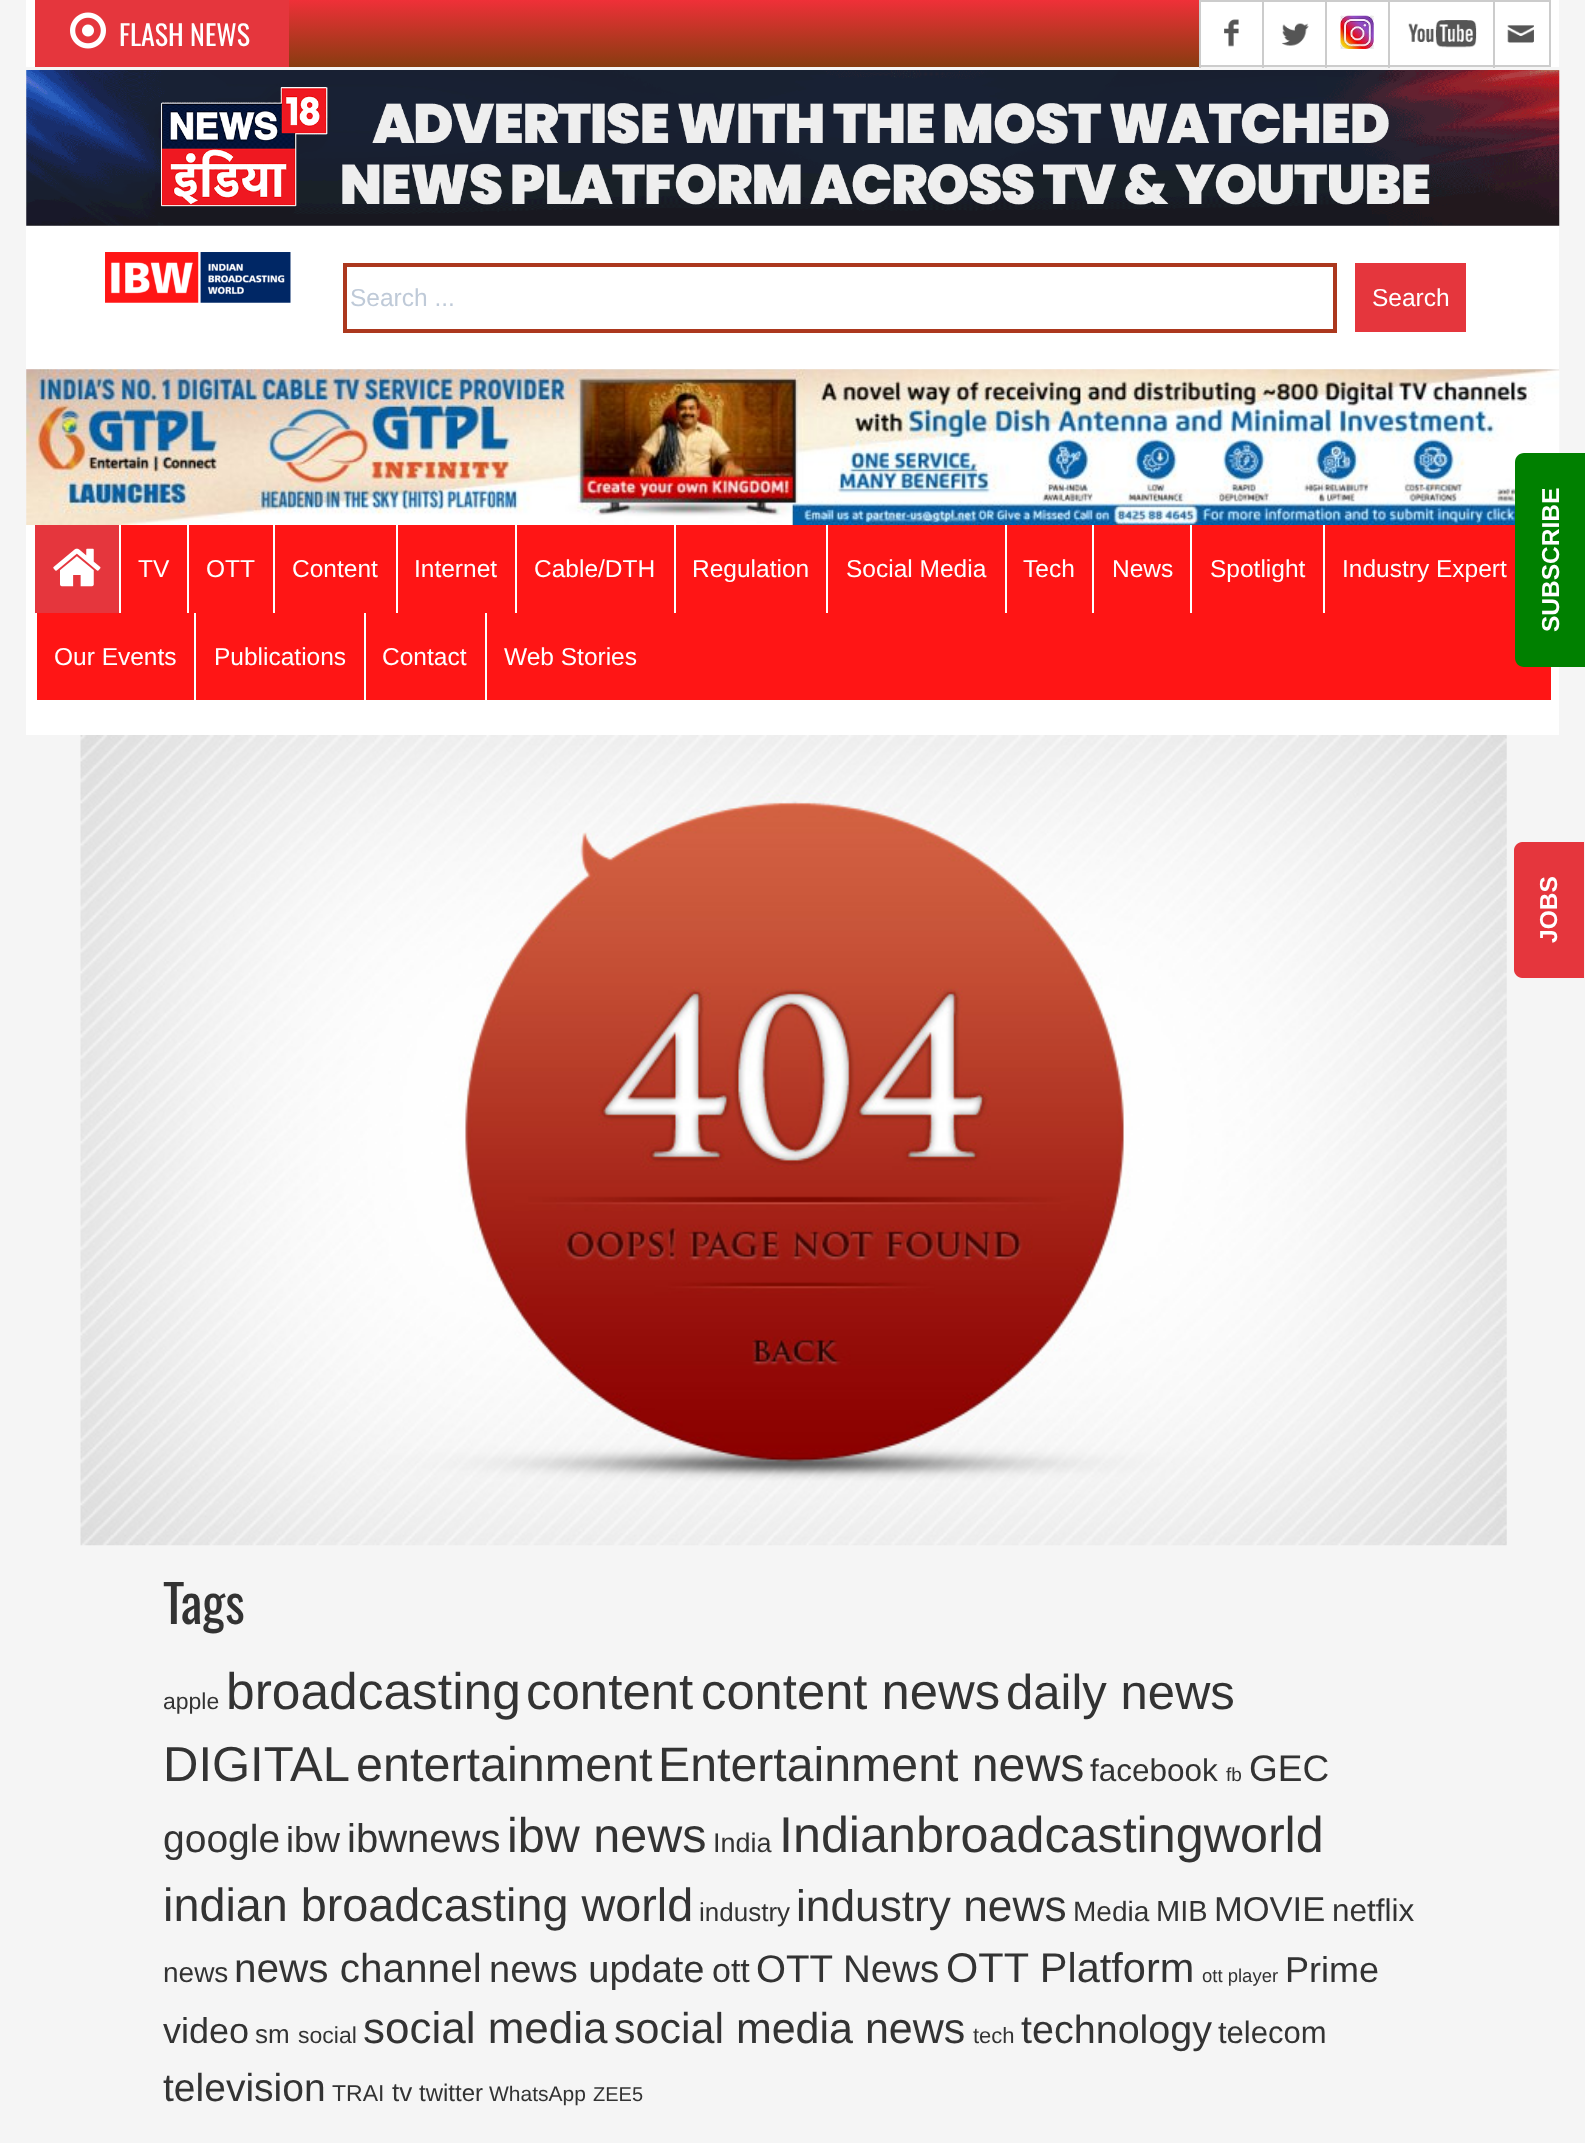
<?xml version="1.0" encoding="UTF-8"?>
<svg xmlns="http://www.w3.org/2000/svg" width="1585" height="2143">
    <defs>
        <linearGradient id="g1" gradientUnits="userSpaceOnUse" x1="793" y1="0" x2="793" y2="67"><stop offset="0" stop-color="#EF3038"/><stop offset="1" stop-color="#883C10"/></linearGradient>
    </defs>
    <rect width="100%" height="100%" fill="#F5F5F5"/>
    <rect x="26" y="0" width="1533" height="67" fill="#FFFFFF"/>
    <rect x="289" y="0" width="910" height="67" fill="url(#g1)"/>
    <rect x="35" y="0" width="254" height="67" fill="#E5363D"/>
    <image x="70" y="12" width="36" height="37" href="img_01.png"/>
    <text x="119" y="46" font-family="Oswald" font-size="28" fill="#FFFFFF">FLASH NEWS</text>
    <rect x="1199" y="0" width="352" height="2" fill="#CCCCCC"/>
    <rect x="1549" y="0" width="2" height="67" fill="#CCCCCC"/>
    <rect x="1199" y="65" width="352" height="2" fill="#CCCCCC"/>
    <image x="1224" y="19" width="15" height="28" href="img_02.png"/>
    <rect x="1199" y="2" width="2" height="66" fill="#CCCCCC"/>
    <image x="1281" y="23" width="28" height="23" href="img_03.png"/>
    <rect x="1262" y="2" width="2" height="66" fill="#CCCCCC"/>
    <rect x="1325" y="2" width="2" height="66" fill="#CCCCCC"/>
    <image x="1340" y="15" width="34" height="34" href="img_04.png"/>
    <image x="1408" y="20" width="69" height="28" href="img_05.png"/>
    <rect x="1388" y="2" width="2" height="66" fill="#CCCCCC"/>
    <image x="1507" y="25" width="27" height="18" href="img_06.png"/>
    <rect x="1493" y="2" width="2" height="66" fill="#CCCCCC"/>
    <image x="26" y="70" width="1534" height="156" href="img_07.png"/>
    <rect x="26" y="226" width="1533" height="143" fill="#FFFFFF"/>
    <image x="105" y="252" width="186" height="51" href="img_08.png"/>
    <rect x="345" y="265" width="990" height="66" fill="none" stroke="#AC381E" stroke-width="4"/>
    <text x="350" y="306" font-family="Liberation Sans" font-size="24.5" fill="#BFCAD8">Search ...</text>
    <rect x="1349.5" y="257.5" width="122" height="80" rx="1.5" fill="#E5363D" stroke="#FFFFFF" stroke-width="11"/>
    <text x="1372" y="306" font-family="Liberation Sans" font-size="24.5" fill="#FFFFFF">Search</text>
    <image x="26" y="369" width="1534" height="156" href="img_09.png"/>
    <rect x="26" y="525" width="1533" height="210" fill="#FFFFFF"/>
    <rect x="37" y="525" width="1514" height="175" fill="#FF1515"/>
    <rect x="35" y="525" width="84" height="88" fill="#E5363D"/>
    <image x="53" y="548" width="48" height="39" href="img_10.png"/>
    <rect x="119" y="525" width="2" height="88" fill="#FFFFFF"/>
    <text x="138" y="577" font-family="Liberation Sans" font-size="24.5" fill="#FFFFFF">TV</text>
    <rect x="187" y="525" width="2" height="88" fill="#FFFFFF"/>
    <text x="206" y="577" font-family="Liberation Sans" font-size="24.5" fill="#FFFFFF">OTT</text>
    <rect x="273" y="525" width="2" height="88" fill="#FFFFFF"/>
    <text x="292" y="577" font-family="Liberation Sans" font-size="24.5" fill="#FFFFFF">Content</text>
    <rect x="396" y="525" width="2" height="88" fill="#FFFFFF"/>
    <text x="414" y="577" font-family="Liberation Sans" font-size="24.5" fill="#FFFFFF">Internet</text>
    <rect x="515" y="525" width="2" height="88" fill="#FFFFFF"/>
    <text x="534" y="577" font-family="Liberation Sans" font-size="24.5" fill="#FFFFFF">Cable/DTH</text>
    <rect x="674" y="525" width="2" height="88" fill="#FFFFFF"/>
    <text x="692" y="577" font-family="Liberation Sans" font-size="24.5" fill="#FFFFFF">Regulation</text>
    <rect x="826" y="525" width="2" height="88" fill="#FFFFFF"/>
    <text x="846" y="577" font-family="Liberation Sans" font-size="24.5" fill="#FFFFFF">Social Media</text>
    <rect x="1005" y="525" width="2" height="88" fill="#FFFFFF"/>
    <text x="1023" y="577" font-family="Liberation Sans" font-size="24.5" fill="#FFFFFF">Tech</text>
    <rect x="1092" y="525" width="2" height="88" fill="#FFFFFF"/>
    <text x="1112" y="577" font-family="Liberation Sans" font-size="24.5" fill="#FFFFFF">News</text>
    <rect x="1190" y="525" width="2" height="88" fill="#FFFFFF"/>
    <text x="1210" y="577" font-family="Liberation Sans" font-size="24.5" fill="#FFFFFF">Spotlight</text>
    <rect x="1323" y="525" width="2" height="88" fill="#FFFFFF"/>
    <text x="1342" y="577" font-family="Liberation Sans" font-size="24.5" fill="#FFFFFF">Industry Expert</text>
    <text x="54" y="665" font-family="Liberation Sans" font-size="24.5" fill="#FFFFFF">Our Events</text>
    <rect x="194" y="613" width="2" height="87" fill="#FFFFFF"/>
    <text x="214" y="665" font-family="Liberation Sans" font-size="24.5" fill="#FFFFFF">Publications</text>
    <rect x="364" y="613" width="2" height="87" fill="#FFFFFF"/>
    <text x="382" y="665" font-family="Liberation Sans" font-size="24.5" fill="#FFFFFF">Contact</text>
    <rect x="485" y="613" width="2" height="87" fill="#FFFFFF"/>
    <text x="504" y="665" font-family="Liberation Sans" font-size="24.5" fill="#FFFFFF">Web Stories</text>
    <image x="80" y="735" width="1427" height="811" href="img_11.png"/>
    <text x="163" y="1624" font-family="Oswald" font-size="52" fill="#333333">Tags</text>
    <text x="163" y="1709" font-family="Liberation Sans" font-size="23" fill="#333333">apple</text>
    <text x="226" y="1709" font-family="Liberation Sans" font-size="51.5" fill="#333333">broadcasting</text>
    <text x="526" y="1709" font-family="Liberation Sans" font-size="51" fill="#333333">content</text>
    <text x="701" y="1709" font-family="Liberation Sans" font-size="50.75" fill="#333333">content news</text>
    <text x="1006" y="1709" font-family="Liberation Sans" font-size="49" fill="#333333">daily news</text>
    <text x="163" y="1781" font-family="Liberation Sans" font-size="49" fill="#333333">DIGITAL</text>
    <text x="356" y="1781" font-family="Liberation Sans" font-size="48.5" fill="#333333">entertainment</text>
    <text x="658" y="1781" font-family="Liberation Sans" font-size="48.25" fill="#333333">Entertainment news</text>
    <text x="1090" y="1781" font-family="Liberation Sans" font-size="31.5" fill="#333333">facebook</text>
    <text x="1226" y="1781" font-family="Liberation Sans" font-size="19" fill="#333333">fb</text>
    <text x="1249" y="1781" font-family="Liberation Sans" font-size="37" fill="#333333">GEC</text>
    <text x="163" y="1852" font-family="Liberation Sans" font-size="39" fill="#333333">google</text>
    <text x="286" y="1852" font-family="Liberation Sans" font-size="36" fill="#333333">ibw</text>
    <text x="347" y="1852" font-family="Liberation Sans" font-size="40" fill="#333333">ibwnews</text>
    <text x="507" y="1852" font-family="Liberation Sans" font-size="48.5" fill="#333333">ibw news</text>
    <text x="713" y="1852" font-family="Liberation Sans" font-size="27" fill="#333333">India</text>
    <text x="779" y="1852" font-family="Liberation Sans" font-size="50.25" fill="#333333">Indianbroadcastingworld</text>
    <text x="163" y="1921" font-family="Liberation Sans" font-size="46.75" fill="#333333">indian broadcasting world</text>
    <text x="699" y="1921" font-family="Liberation Sans" font-size="26" fill="#333333">industry</text>
    <text x="796" y="1921" font-family="Liberation Sans" font-size="44.25" fill="#333333">industry news</text>
    <text x="1073" y="1921" font-family="Liberation Sans" font-size="28" fill="#333333">Media</text>
    <text x="1156" y="1921" font-family="Liberation Sans" font-size="29" fill="#333333">MIB</text>
    <text x="1214" y="1921" font-family="Liberation Sans" font-size="34.5" fill="#333333">MOVIE</text>
    <text x="1332" y="1921" font-family="Liberation Sans" font-size="31.5" fill="#333333">netflix</text>
    <text x="163" y="1982" font-family="Liberation Sans" font-size="28" fill="#333333">news</text>
    <text x="234" y="1982" font-family="Liberation Sans" font-size="40.5" fill="#333333">news channel</text>
    <text x="489" y="1982" font-family="Liberation Sans" font-size="38" fill="#333333">news update</text>
    <text x="712" y="1982" font-family="Liberation Sans" font-size="34" fill="#333333">ott</text>
    <text x="756" y="1982" font-family="Liberation Sans" font-size="38.5" fill="#333333">OTT News</text>
    <text x="946" y="1982" font-family="Liberation Sans" font-size="41.5" fill="#333333">OTT Platform</text>
    <text x="1202" y="1982" font-family="Liberation Sans" font-size="18.5" fill="#333333">ott player</text>
    <text x="1285" y="1982" font-family="Liberation Sans" font-size="36" fill="#333333">Prime</text>
    <text x="163" y="2043" font-family="Liberation Sans" font-size="36" fill="#333333">video</text>
    <text x="255" y="2043" font-family="Liberation Sans" font-size="26" fill="#333333">sm</text>
    <text x="298" y="2043" font-family="Liberation Sans" font-size="23" fill="#333333">social</text>
    <text x="363" y="2043" font-family="Liberation Sans" font-size="44" fill="#333333">social media</text>
    <text x="614" y="2043" font-family="Liberation Sans" font-size="43" fill="#333333">social media news</text>
    <text x="973" y="2043" font-family="Liberation Sans" font-size="22" fill="#333333">tech</text>
    <text x="1021" y="2043" font-family="Liberation Sans" font-size="39.5" fill="#333333">technology</text>
    <text x="1218" y="2043" font-family="Liberation Sans" font-size="31" fill="#333333">telecom</text>
    <text x="163" y="2101" font-family="Liberation Sans" font-size="39" fill="#333333">television</text>
    <text x="332" y="2101" font-family="Liberation Sans" font-size="23" fill="#333333">TRAI</text>
    <text x="392" y="2101" font-family="Liberation Sans" font-size="26" fill="#333333">tv</text>
    <text x="419" y="2101" font-family="Liberation Sans" font-size="24" fill="#333333">twitter</text>
    <text x="489" y="2101" font-family="Liberation Sans" font-size="21" fill="#333333">WhatsApp</text>
    <text x="593" y="2101" font-family="Liberation Sans" font-size="20" fill="#333333">ZEE5</text>
    <path d="M 1515 658 V 462 C 1515 457 1519 453 1524 453 H 1585 V 667 H 1524 C 1519 667 1515 663 1515 658 Z" fill="#008000"/>
    <text x="1559" y="632" transform="rotate(-90 1559 632)" font-family="Liberation Sans" font-size="24.5" font-weight="700" fill="#FFFFFF">SUBSCRIBE</text>
    <path d="M 1514 970 V 850 C 1514 846 1518 842 1522 842 H 1584 V 978 H 1522 C 1518 978 1514 974 1514 970 Z" fill="#E5363D"/>
    <text x="1557" y="943" transform="rotate(-90 1557 943)" font-family="Liberation Sans" font-size="24.5" font-weight="700" fill="#FFFFFF">JOBS</text>
</svg>
